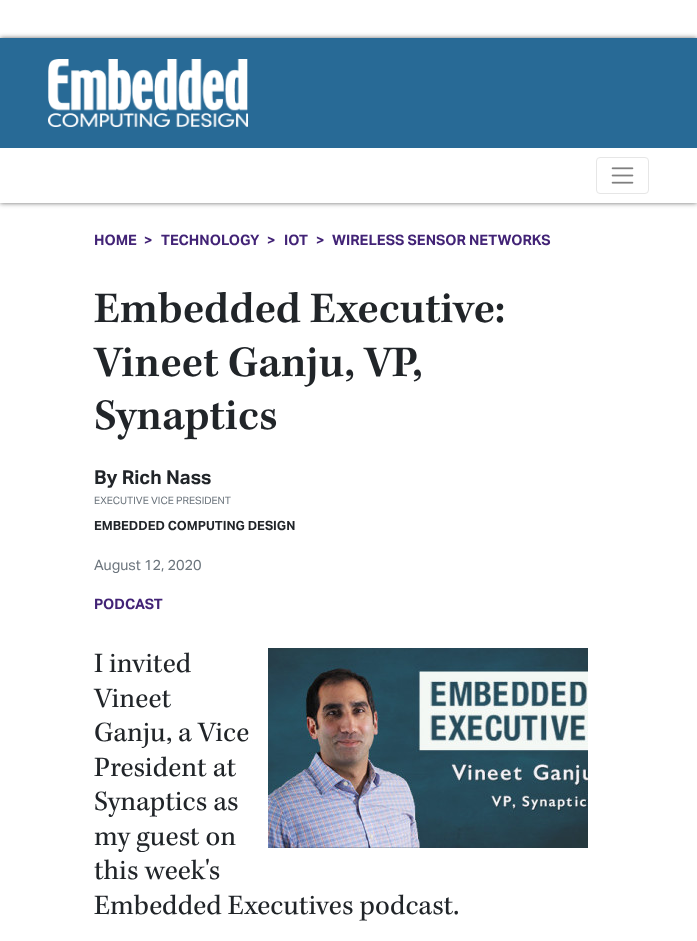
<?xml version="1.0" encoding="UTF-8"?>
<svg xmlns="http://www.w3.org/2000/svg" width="697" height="941">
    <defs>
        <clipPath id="clip1"><path d="M 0 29 H 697 V 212 H 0 Z M 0 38 H 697 V 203 H 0 Z" clip-rule="evenodd"/></clipPath>
        <filter id="blur1" x="-50%" y="-200%" width="200%" height="500%"><feGaussianBlur stdDeviation="2.5"/></filter>
    </defs>
    <rect width="100%" height="100%" fill="#FFFFFF"/>
    <g clip-path="url(#clip1)">
        <rect x="0" y="38" width="697" height="165" fill="#696969" filter="url(#blur1)"/>
    </g>
    <rect x="0" y="38" width="697" height="110" fill="#286A96"/>
    <image x="48" y="59" width="200" height="68" href="img_01.png"/>
    <rect x="596.5" y="157.5" width="52" height="36" rx="3.5" fill="none" stroke="#E6E6E6"/>
    <image x="611" y="167" width="23" height="17" href="img_02.png"/>
    <text x="94" y="245" font-family="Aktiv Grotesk" font-size="14.4" font-weight="700" fill="#422376">HOME</text>
    <text x="144" y="245" font-family="Aktiv Grotesk" font-size="14.4" font-weight="700" fill="#422376">&gt;</text>
    <text x="161" y="245" font-family="Aktiv Grotesk" font-size="14.4" font-weight="700" fill="#422376">TECHNOLOGY</text>
    <text x="267" y="245" font-family="Aktiv Grotesk" font-size="14.4" font-weight="700" fill="#422376">&gt;</text>
    <text x="284" y="245" font-family="Aktiv Grotesk" font-size="14.4" font-weight="700" fill="#422376">IOT</text>
    <text x="316" y="245" font-family="Aktiv Grotesk" font-size="14.4" font-weight="700" fill="#422376">&gt;</text>
    <text x="332" y="245" font-family="Aktiv Grotesk" font-size="14.4" font-weight="700" fill="#422376">WIRELESS SENSOR NETWORKS</text>
    <text font-family="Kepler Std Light" font-size="44.75" font-weight="600" fill="#212529">
        <tspan x="94" y="322">Embedded Executive:</tspan>
        <tspan x="94" y="376">Vineet Ganju, VP,</tspan>
        <tspan x="94" y="429">Synaptics</tspan>
    </text>
    <text x="94" y="484" font-family="Aktiv Grotesk" font-size="19.25" font-weight="700" fill="#212529">By Rich Nass</text>
    <text x="94" y="504" font-family="Aktiv Grotesk" font-size="10.25" fill="#6C757D">EXECUTIVE VICE PRESIDENT</text>
    <text x="94" y="530" font-family="Aktiv Grotesk" font-size="12.75" font-weight="700" fill="#212529">EMBEDDED COMPUTING DESIGN</text>
    <text x="94" y="570" font-family="Aktiv Grotesk" font-size="14.4" fill="#6C757D">August 12, 2020</text>
    <text x="94" y="609" font-family="Aktiv Grotesk" font-size="14.4" font-weight="700" fill="#422376">PODCAST</text>
    <image x="268" y="648" width="320" height="200" href="img_03.png"/>
    <text font-family="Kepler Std" font-size="28.75" fill="#212529">
        <tspan x="94" y="672">I invited</tspan>
        <tspan x="94" y="707">Vineet</tspan>
        <tspan x="94" y="741">Ganju, a Vice</tspan>
        <tspan x="94" y="776">President at</tspan>
        <tspan x="94" y="810">Synaptics as</tspan>
        <tspan x="94" y="845">my guest on</tspan>
        <tspan x="94" y="879">this week's</tspan>
        <tspan x="94" y="914">Embedded Executives podcast.</tspan>
    </text>
</svg>
